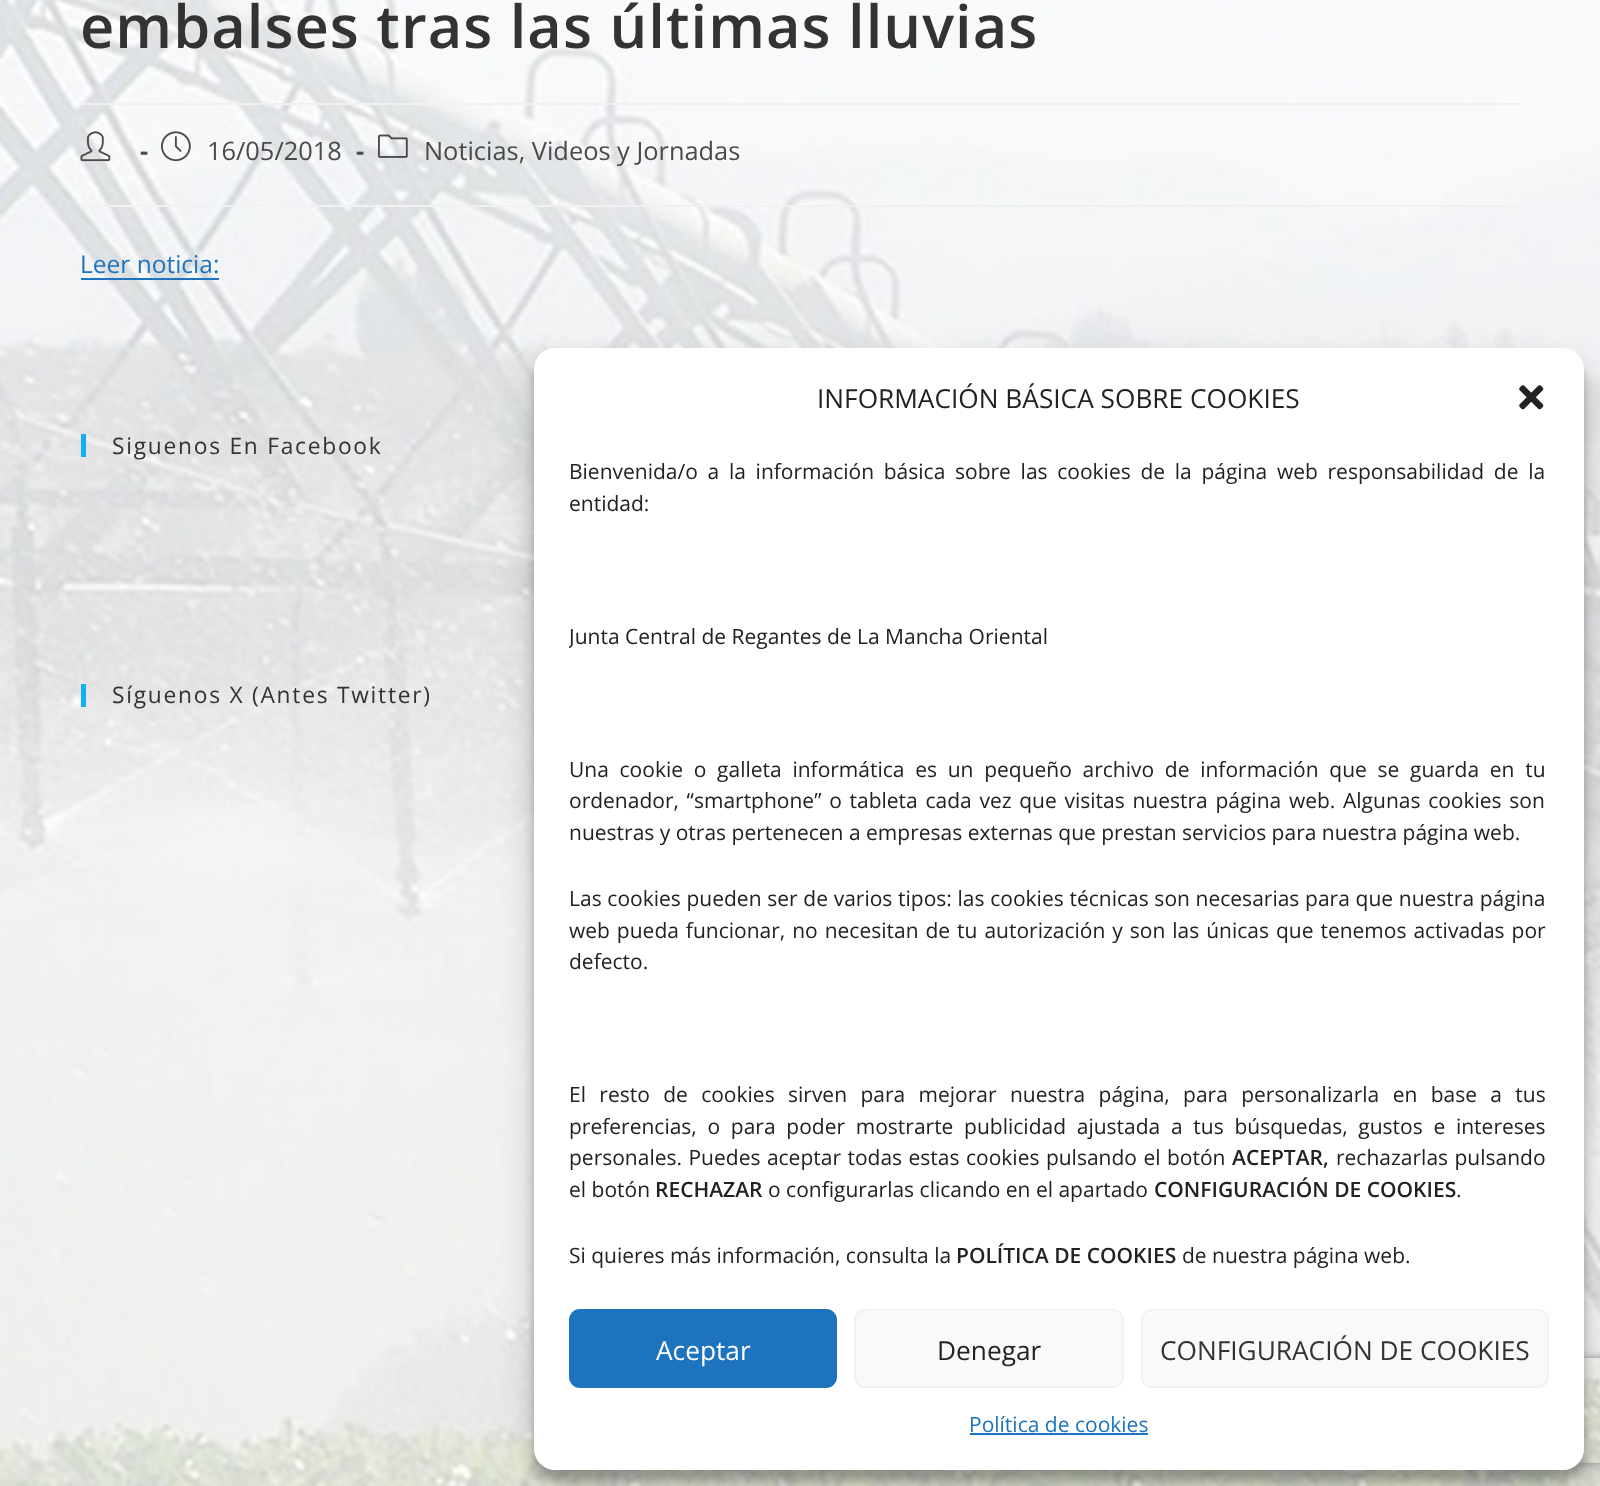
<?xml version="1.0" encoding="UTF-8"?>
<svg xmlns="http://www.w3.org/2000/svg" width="1600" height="1486">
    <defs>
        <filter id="blur1" x="-50%" y="-200%" width="200%" height="500%"><feGaussianBlur stdDeviation="5"/></filter>
        <filter id="blur2" x="-50%" y="-200%" width="200%" height="500%"><feGaussianBlur stdDeviation="17.5"/></filter>
        <clipPath id="clip1"><path d="M 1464 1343 H 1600 V 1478 H 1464 Z M 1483 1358 H 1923 C 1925 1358 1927 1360 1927 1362 V 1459 C 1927 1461 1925 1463 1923 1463 H 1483 C 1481 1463 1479 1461 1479 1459 V 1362 C 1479 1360 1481 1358 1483 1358 Z" clip-rule="evenodd"/></clipPath>
        <filter id="blur3" x="-50%" y="-200%" width="200%" height="500%"><feGaussianBlur stdDeviation="4.5"/></filter>
        <clipPath id="clip2"><rect x="569" y="457" width="980" height="817"/></clipPath>
    </defs>
    <rect width="100%" height="100%" fill="#FFFFFF"/>
    <image x="0" y="0" width="1600" height="1486" href="img_01.png"/>
    <rect x="81" y="103" width="1440" height="2" fill="#F1F1F1"/>
    <text x="80" y="48" font-family="Open Sans" font-size="59.5" font-weight="600" letter-spacing="1.05" fill="#333333">embalses tras las últimas lluvias</text>
    <rect x="81" y="205" width="1440" height="2" fill="#F1F1F1"/>
    <image x="80" y="131" width="31" height="31" href="img_02.png"/>
    <text x="140" y="160" font-family="Open Sans" font-size="25.4" font-weight="700" fill="#4A4A4A">-</text>
    <image x="161" y="131" width="30" height="31" href="img_03.png"/>
    <text x="207" y="160" font-family="Open Sans" font-size="25.4" fill="#4A4A4A">16/05/2018</text>
    <text x="356" y="160" font-family="Open Sans" font-size="25.4" font-weight="700" fill="#4A4A4A">-</text>
    <image x="378" y="134" width="30" height="24" href="img_04.png"/>
    <text x="424" y="160" font-family="Open Sans" font-size="25.4" fill="#4A4A4A">Noticias, Videos y Jornadas</text>
    <text x="80" y="273" font-family="Open Sans" font-size="24.5" fill="#1E73BE">Leer noticia:</text>
    <rect x="81" y="278" width="138" height="2" fill="#1E73BE"/>
    <rect x="81" y="434" width="5" height="23" fill="#13AFF0"/>
    <text x="112" y="454" font-family="Open Sans" font-size="22.75" letter-spacing="1.75" fill="#333333">Siguenos En Facebook</text>
    <rect x="81" y="684" width="5" height="23" fill="#13AFF0"/>
    <text x="112" y="703" font-family="Open Sans" font-size="22.75" letter-spacing="1.75" fill="#333333">Síguenos X (Antes Twitter)</text>
    <rect x="534" y="359" width="1050" height="1122" rx="21" fill="#000000" fill-opacity="0.23" filter="url(#blur1)"/>
    <rect x="534" y="366" width="1050" height="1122" rx="21" fill="#000000" fill-opacity="0.19" filter="url(#blur2)"/>
    <g clip-path="url(#clip1)">
        <rect x="1479" y="1358" width="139" height="105" rx="4" fill="#808080" filter="url(#blur3)"/>
    </g>
    <rect x="534" y="348" width="1050" height="1122" rx="21" fill="#FFFFFF"/>
    <text x="817" y="408" font-family="Open Sans" font-size="26.25" fill="#222222">INFORMACIÓN BÁSICA SOBRE COOKIES</text>
    <image x="1519" y="385" width="25" height="25" href="img_05.png"/>
    <text font-family="Open Sans" font-size="21" fill="#222222">
        <tspan x="569" y="479" word-spacing="4.25">Bienvenida/o a la información básica sobre las cookies de la página web responsabilidad de la</tspan>
        <tspan x="569" y="511">entidad:</tspan>
    </text>
    <g clip-path="url(#clip2)">
        <text x="569" y="644" font-family="Open Sans" font-size="21" fill="#222222">Junta Central de Regantes de La Mancha Oriental</text>
    </g>
    <text font-family="Open Sans" font-size="21" fill="#222222">
        <tspan x="569" y="777" word-spacing="5.25">Una cookie o galleta informática es un pequeño archivo de información que se guarda en tu</tspan>
        <tspan x="569" y="808" word-spacing="2.25">ordenador, “smartphone” o tableta cada vez que visitas nuestra página web. Algunas cookies son</tspan>
        <tspan x="569" y="840">nuestras y otras pertenecen a empresas externas que prestan servicios para nuestra página web.</tspan>
    </text>
    <text font-family="Open Sans" font-size="21" fill="#222222">
        <tspan x="569" y="906" word-spacing="0.25">Las cookies pueden ser de varios tipos: las cookies técnicas son necesarias para que nuestra página</tspan>
        <tspan x="569" y="938" word-spacing="1.5">web pueda funcionar, no necesitan de tu autorización y son las únicas que tenemos activadas por</tspan>
        <tspan x="569" y="969">defecto.</tspan>
    </text>
    <text font-family="Open Sans" font-size="21" fill="#222222">
        <tspan x="569" y="1102" word-spacing="7.9">El resto de cookies sirven para mejorar nuestra página, para personalizarla en base a tus</tspan>
        <tspan x="569" y="1134" word-spacing="5.25">preferencias, o para poder mostrarte publicidad ajustada a tus búsquedas, gustos e intereses</tspan>
        <tspan x="569" y="1165" word-spacing="1">personales. Puedes aceptar todas estas cookies pulsando el botón</tspan>
    </text>
    <text x="1232" y="1165" font-family="Open Sans" font-size="21" font-weight="600" fill="#222222">ACEPTAR,</text>
    <text x="1336" y="1165" word-spacing="1" font-family="Open Sans" font-size="21" fill="#222222">rechazarlas pulsando</text>
    <text x="569" y="1197" font-family="Open Sans" font-size="21" fill="#222222">el botón</text>
    <text x="655" y="1197" font-family="Open Sans" font-size="21" font-weight="600" fill="#222222">RECHAZAR</text>
    <text x="768" y="1197" font-family="Open Sans" font-size="21" fill="#222222">o configurarlas clicando en el apartado</text>
    <text x="1154" y="1197" font-family="Open Sans" font-size="21" font-weight="600" fill="#222222">CONFIGURACIÓN DE COOKIES</text>
    <text x="1456" y="1197" font-family="Open Sans" font-size="21" fill="#222222">.</text>
    <text x="569" y="1263" font-family="Open Sans" font-size="21" fill="#222222">Si quieres más información, consulta la</text>
    <text x="956" y="1263" font-family="Open Sans" font-size="21" font-weight="600" fill="#222222">POLÍTICA DE COOKIES</text>
    <text x="1182" y="1263" font-family="Open Sans" font-size="21" fill="#222222">de nuestra página web.</text>
    <rect x="570" y="1310" width="266" height="77" rx="10" fill="#1E73BE" stroke="#1E73BE" stroke-width="2"/>
    <text x="656" y="1360" font-family="Open Sans" font-size="26.25" fill="#FFFFFF">Aceptar</text>
    <rect x="855" y="1310" width="268" height="77" rx="10" fill="#F9F9F9" stroke="#F2F2F2" stroke-width="2"/>
    <text x="937" y="1360" font-family="Open Sans" font-size="26.25" fill="#222222">Denegar</text>
    <rect x="1142" y="1310" width="406" height="77" rx="10" fill="#F9F9F9" stroke="#F2F2F2" stroke-width="2"/>
    <text x="1160" y="1360" font-family="Open Sans" font-size="26.25" fill="#333333">CONFIGURACIÓN DE COOKIES</text>
    <text x="969" y="1432" font-family="Open Sans" font-size="21" fill="#1E73BE">Política de cookies</text>
    <rect x="970" y="1433" width="178" height="2" fill="#1E73BE"/>
</svg>
